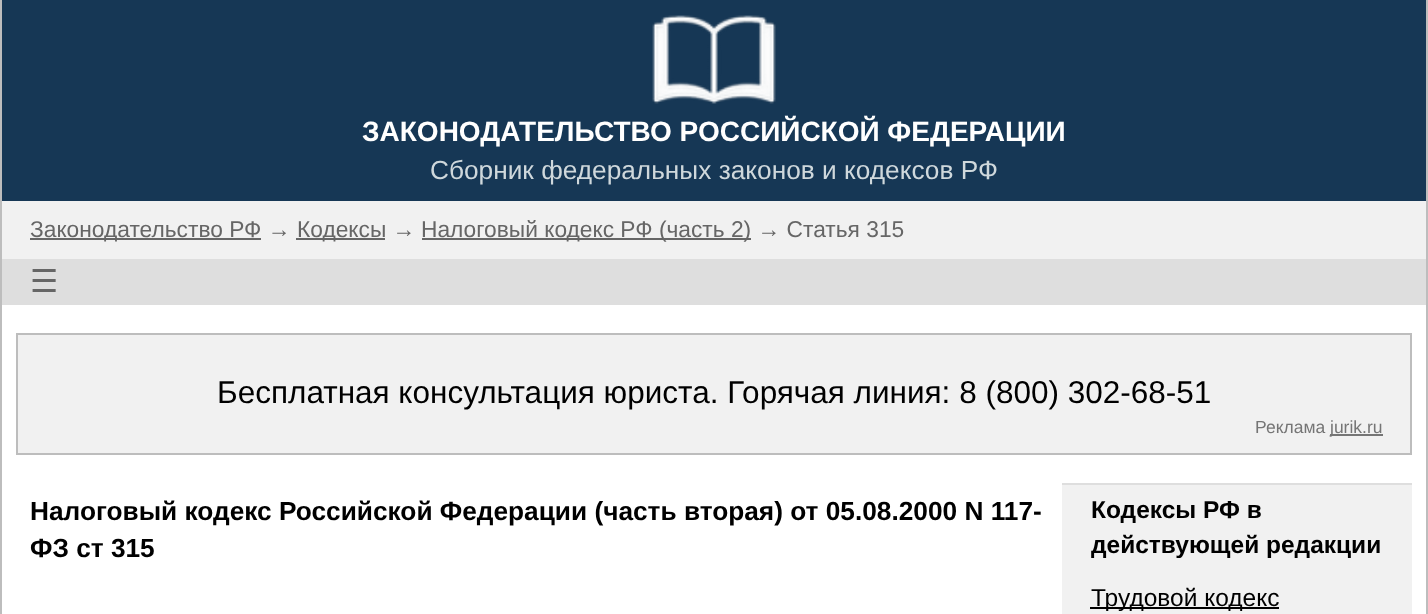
<?xml version="1.0" encoding="UTF-8"?>
<svg xmlns="http://www.w3.org/2000/svg" width="1428" height="614">
    <rect width="100%" height="100%" fill="#FFFFFF"/>
    <rect x="1426" y="0" width="2" height="614" fill="#BDBDBD"/>
    <rect x="0" y="0" width="2" height="614" fill="#BDBDBD"/>
    <rect x="2" y="0" width="1424" height="201" fill="#163755"/>
    <image x="652" y="15" width="124" height="89" href="img_01.png"/>
    <text x="362" y="141" font-family="Liberation Sans" font-size="28" font-weight="700" fill="#FFFFFF">ЗАКОНОДАТЕЛЬСТВО РОССИЙСКОЙ ФЕДЕРАЦИИ</text>
    <text x="430" y="179" font-family="Liberation Sans" font-size="26.25" fill="#CFD8DC">Сборник федеральных законов и кодексов РФ</text>
    <rect x="2" y="201" width="1424" height="58" fill="#F1F1F1"/>
    <rect x="2" y="259" width="1424" height="46" fill="#DEDEDE"/>
    <rect x="30" y="238" width="231" height="2" fill="#666666"/>
    <text x="30" y="237" font-family="Liberation Sans" font-size="22.75" fill="#666666">Законодательство РФ →</text>
    <rect x="296" y="238" width="89" height="2" fill="#666666"/>
    <text x="297" y="237" font-family="Liberation Sans" font-size="22.75" fill="#666666">Кодексы →</text>
    <rect x="422" y="238" width="329" height="2" fill="#666666"/>
    <text x="421" y="237" font-family="Liberation Sans" font-size="22.75" fill="#666666">Налоговый кодекс РФ (часть 2) → Статья 315</text>
    <text x="30" y="292" font-family="DejaVu Sans" font-size="31.5" fill="#666666">☰</text>
    <rect x="17" y="334" width="1394" height="120" fill="#F1F1F1" stroke="#BDBDBD" stroke-width="2"/>
    <text x="217" y="403" font-family="Liberation Sans" font-size="31.5" fill="#000000">Бесплатная консультация юриста. Горячая линия: 8 (800) 302-68-51</text>
    <text x="1255" y="433" font-family="Liberation Sans" font-size="17.5" fill="#757575">Реклама</text>
    <rect x="1330" y="434" width="53" height="2" fill="#757575"/>
    <text x="1330" y="433" font-family="Liberation Sans" font-size="17.5" fill="#757575">jurik.ru</text>
    <text font-family="Liberation Sans" font-size="26.25" font-weight="700" fill="#000000">
        <tspan x="30" y="520">Налоговый кодекс Российской Федерации (часть вторая) от 05.08.2000 N 117-</tspan>
        <tspan x="30" y="557">ФЗ ст 315</tspan>
    </text>
    <rect x="1062" y="485" width="350" height="129" fill="#F1F1F1"/>
    <rect x="1062" y="483" width="350" height="2" fill="#DEDEDE"/>
    <text font-family="Liberation Sans" font-size="24.5" font-weight="700" fill="#000000">
        <tspan x="1091" y="518">Кодексы РФ в</tspan>
        <tspan x="1091" y="553">действующей редакции</tspan>
    </text>
    <rect x="1090" y="607" width="189" height="2" fill="#000000"/>
    <text x="1091" y="606" font-family="Liberation Sans" font-size="24.5" fill="#000000">Трудовой кодекс</text>
</svg>
